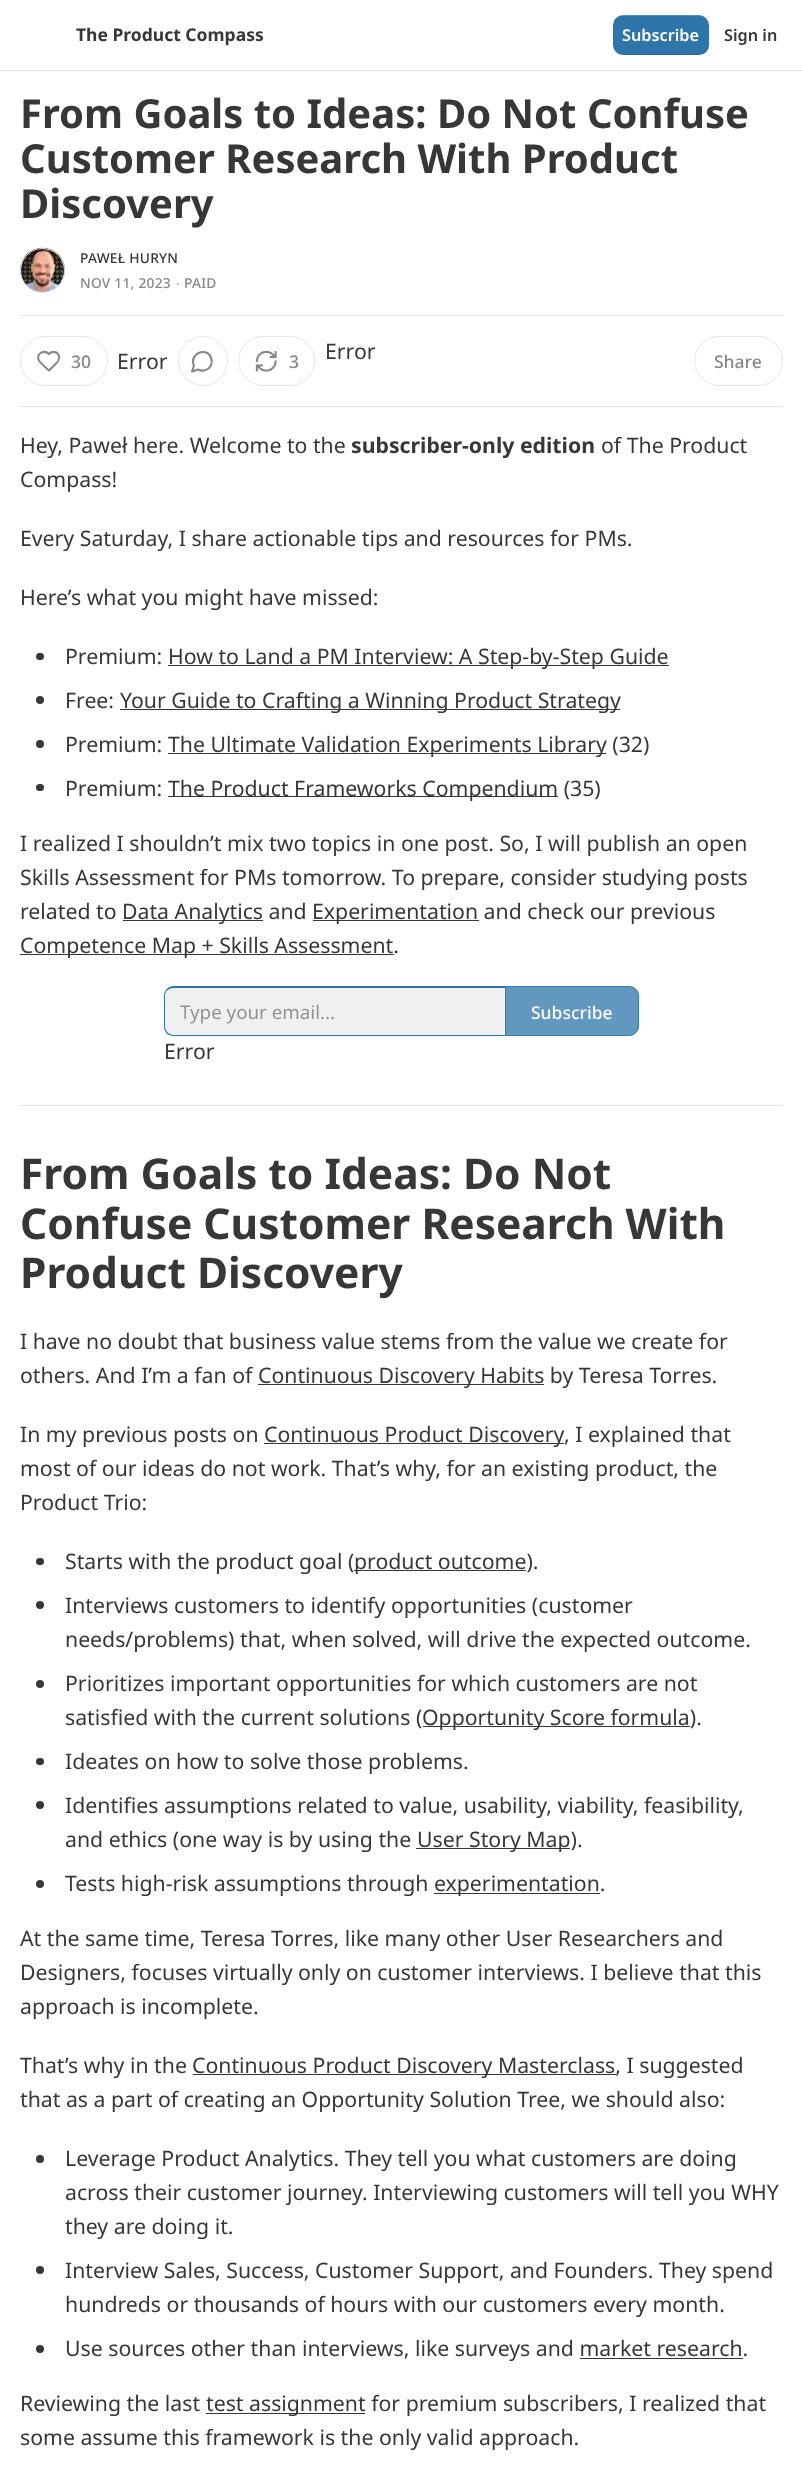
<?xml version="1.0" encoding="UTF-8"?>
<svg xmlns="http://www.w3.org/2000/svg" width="802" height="2476">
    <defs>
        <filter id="blur1" x="-50%" y="-200%" width="200%" height="500%"><feGaussianBlur stdDeviation="1"/></filter>
    </defs>
    <rect width="100%" height="100%" fill="#FFFFFF"/>
    <rect x="0" y="70" width="802" height="1" fill="#E6E6E6"/>
    <text x="76" y="41" font-family="Noto Sans" font-size="17.5" font-weight="700" fill="#363737">The Product Compass</text>
    <rect x="613" y="15" width="96" height="40" rx="10" fill="#2E75A9"/>
    <path d="M 614 50 C 616 53 619 55 623 55 H 699 C 705 55 709 51 709 45 V 44 C 709 49 704 54 699 54 H 622 C 619 54 616 52 614 50 Z" fill="#000000" fill-opacity="0.1"/>
    <path d="M 622 16 H 699 C 704 16 709 21 709 26 V 25 C 709 19 705 15 699 15 H 623 C 619 15 616 17 614 20 C 616 18 619 16 622 16 Z" fill="#FFFFFF" fill-opacity="0.2"/>
    <text x="622" y="41" font-family="Noto Sans" font-size="16.25" font-weight="600" fill="#FFFFFF">Subscribe</text>
    <text x="724" y="41" font-family="Noto Sans" font-size="16.25" font-weight="600" fill="#363737">Sign in</text>
    <text font-family="Noto Sans" font-size="40" font-weight="700" fill="#363737">
        <tspan x="20" y="128">From Goals to Ideas: Do Not Confuse</tspan>
        <tspan x="20" y="173">Customer Research With Product</tspan>
        <tspan x="20" y="218">Discovery</tspan>
    </text>
    <circle cx="42.5" cy="270.5" r="22" fill="none" stroke="#E6E6E6"/>
    <image x="20" y="247" width="45" height="46" href="img_01.png"/>
    <circle cx="42.5" cy="270.5" r="22" fill="none" stroke="#E6E6E6"/>
    <text x="80" y="263" font-family="Noto Sans" font-size="13.75" font-weight="500" letter-spacing="0.25" fill="#363737">PAWEŁ HURYN</text>
    <text x="80" y="288" font-family="Noto Sans" font-size="13.75" font-weight="500" letter-spacing="0.25" fill="#868787">NOV 11, 2023</text>
    <text x="176" y="288" font-family="Liberation Sans" font-size="13.75" letter-spacing="0.25" fill="#868787">∙</text>
    <text x="184" y="288" font-family="Noto Sans" font-size="13.75" font-weight="500" letter-spacing="0.25" fill="#868787">PAID</text>
    <rect x="20" y="315" width="763" height="1" fill="#E6E6E6"/>
    <rect x="20" y="406" width="763" height="1" fill="#E6E6E6"/>
    <rect x="20.5" y="336.5" width="87" height="49" rx="24.5" fill="none" stroke="#E6E6E6"/>
    <path d="M 56 363.5 C 64 356 55 348 49 354 C 44.5 349.5 36.5 353 38.5 359.5 C 39.5 362.5 46 368 49 370.5 Z" fill="none" stroke="#868787" stroke-width="2.1" stroke-linecap="round" stroke-linejoin="round"/>
    <text x="71" y="368" font-family="Noto Sans" font-size="17.5" font-weight="500" fill="#868787">30</text>
    <text x="117" y="369" font-family="Noto Sans" font-size="21.25" fill="#363737">Error</text>
    <circle cx="203" cy="361" r="24.5" fill="none" stroke="#E6E6E6"/>
    <path d="M 198 369.5 C 203 372 208.5 370 211 365.5 C 212 363 212 360 211 357.5 C 206 346 188.5 354.5 194 365.5 L 192 371.5 Z" fill="none" stroke="#868787" stroke-width="2.1" stroke-linecap="round" stroke-linejoin="round"/>
    <rect x="238.5" y="336.5" width="76" height="49" rx="24.5" fill="none" stroke="#E6E6E6"/>
    <image x="255" y="350" width="22" height="22" href="img_02.png"/>
    <text x="289" y="368" font-family="Noto Sans" font-size="17.5" font-weight="500" fill="#868787">3</text>
    <text x="325" y="359" font-family="Noto Sans" font-size="21.25" fill="#363737">Error</text>
    <rect x="694.5" y="336.5" width="88" height="49" rx="24.5" fill="none" stroke="#E6E6E6"/>
    <text x="714" y="368" font-family="Noto Sans" font-size="17.5" font-weight="500" fill="#868787">Share</text>
    <text x="20" y="453" font-family="Noto Sans" font-size="21.25" fill="#363737">Hey, Paweł here. Welcome to the</text>
    <text x="351" y="453" font-family="Noto Sans" font-size="21.25" font-weight="700" fill="#363737">subscriber-only edition</text>
    <text x="601" y="453" font-family="Noto Sans" font-size="21.25" fill="#363737">of The Product</text>
    <text x="20" y="487" font-family="Noto Sans" font-size="21.25" fill="#363737">Compass!</text>
    <text x="20" y="546" font-family="Noto Sans" font-size="21.25" fill="#363737">Every Saturday, I share actionable tips and resources for PMs.</text>
    <text x="20" y="605" font-family="Noto Sans" font-size="21.25" fill="#363737">Here’s what you might have missed:</text>
    <rect x="36" y="653" width="8" height="7" rx="3.5" fill="#363737"/>
    <text x="65" y="664" font-family="Noto Sans" font-size="21.25" fill="#363737">Premium:</text>
    <rect x="168" y="665" width="501" height="1" fill="#363737"/>
    <text x="168" y="664" font-family="Noto Sans" font-size="21.25" fill="#363737">How to Land a PM Interview: A Step-by-Step Guide</text>
    <circle cx="40" cy="700" r="4" fill="#363737"/>
    <text x="65" y="708" font-family="Noto Sans" font-size="21.25" fill="#363737">Free:</text>
    <rect x="120" y="709" width="500" height="1" fill="#363737"/>
    <text x="120" y="708" font-family="Noto Sans" font-size="21.25" fill="#363737">Your Guide to Crafting a Winning Product Strategy</text>
    <circle cx="40" cy="744" r="4" fill="#363737"/>
    <text x="65" y="752" font-family="Noto Sans" font-size="21.25" fill="#363737">Premium:</text>
    <rect x="168" y="753" width="438" height="1" fill="#363737"/>
    <text x="168" y="752" font-family="Noto Sans" font-size="21.25" fill="#363737">The Ultimate Validation Experiments Library (32)</text>
    <rect x="36" y="784" width="8" height="7" rx="3.5" fill="#363737"/>
    <text x="65" y="796" font-family="Noto Sans" font-size="21.25" fill="#363737">Premium:</text>
    <rect x="168" y="796" width="390" height="1" fill="#363737"/>
    <text x="168" y="796" font-family="Noto Sans" font-size="21.25" fill="#363737">The Product Frameworks Compendium (35)</text>
    <text font-family="Noto Sans" font-size="21.25" fill="#363737">
        <tspan x="20" y="851">I realized I shouldn’t mix two topics in one post. So, I will publish an open</tspan>
        <tspan x="20" y="885">Skills Assessment for PMs tomorrow. To prepare, consider studying posts</tspan>
        <tspan x="20" y="919">related to</tspan>
    </text>
    <rect x="123" y="920" width="140" height="1" fill="#363737"/>
    <text x="122" y="919" font-family="Noto Sans" font-size="21.25" fill="#363737">Data Analytics and</text>
    <rect x="313" y="920" width="166" height="1" fill="#363737"/>
    <text x="312" y="919" font-family="Noto Sans" font-size="21.25" fill="#363737">Experimentation and check our previous</text>
    <rect x="20" y="954" width="374" height="1" fill="#363737"/>
    <text x="20" y="953" font-family="Noto Sans" font-size="21.25" fill="#363737">Competence Map + Skills Assessment.</text>
    <rect x="164" y="988" width="341" height="50" rx="10" fill="#000000" fill-opacity="0.05" filter="url(#blur1)"/>
    <path d="M 174 988 H 505 V 1035 H 174 C 169 1035 165 1031 165 1026 V 997 C 165 992 169 988 174 988 Z" fill="#F0F0F0"/>
    <path d="M 174 986 H 505 V 1036 H 174 C 168 1036 164 1032 164 1026 V 996 C 164 991 168 986 174 986 Z M 174 988 H 505 V 1035 H 174 C 169 1035 165 1031 165 1026 V 996 C 165 991 169 988 174 988 Z" fill="#2E75A9" fill-rule="evenodd"/>
    <text x="180" y="1019" font-family="Noto Sans" font-size="18.75" fill="#929292">Type your email...</text>
    <path d="M 505 986 H 629 C 634.5 986 639 990.5 639 996 V 1026 C 639 1031.5 634.5 1036 629 1036 H 505 Z" fill="#2E75A9" fill-opacity="0.75"/>
    <path d="M 505.5 986.5 H 629 C 634 986.5 638.5 991 638.5 996 V 1026 C 638.5 1031 634 1035.5 629 1035.5 H 505.5 Z" fill="none" stroke="#2E75A9" stroke-opacity="0.75"/>
    <text x="531" y="1019" font-family="Noto Sans" font-size="17.5" font-weight="500" fill="#FFFFFF">Subscribe</text>
    <text x="164" y="1059" font-family="Noto Sans" font-size="21.25" fill="#363737">Error</text>
    <rect x="20" y="1105" width="763" height="1" fill="#E6E6E6"/>
    <text font-family="Noto Sans" font-size="42.5" font-weight="700" fill="#363737">
        <tspan x="20" y="1189">From Goals to Ideas: Do Not</tspan>
        <tspan x="20" y="1239">Confuse Customer Research With</tspan>
        <tspan x="20" y="1288">Product Discovery</tspan>
    </text>
    <text font-family="Noto Sans" font-size="21.25" fill="#363737">
        <tspan x="20" y="1349">I have no doubt that business value stems from the value we create for</tspan>
        <tspan x="20" y="1383">others. And I’m a fan of</tspan>
    </text>
    <rect x="258" y="1384" width="286" height="1" fill="#363737"/>
    <text x="258" y="1383" font-family="Noto Sans" font-size="21.25" fill="#363737">Continuous Discovery Habits by Teresa Torres.</text>
    <text x="20" y="1442" font-family="Noto Sans" font-size="21.25" fill="#363737">In my previous posts on</text>
    <rect x="264" y="1443" width="300" height="1" fill="#363737"/>
    <text x="264" y="1442" font-family="Noto Sans" font-size="21.25" fill="#363737">Continuous Product Discovery</text>
    <text x="564" y="1442" font-family="Noto Sans" font-size="21.25" fill="#363737">, I explained that</text>
    <text font-family="Noto Sans" font-size="21.25" fill="#363737">
        <tspan x="20" y="1476">most of our ideas do not work. That’s why, for an existing product, the</tspan>
        <tspan x="20" y="1510">Product Trio:</tspan>
    </text>
    <rect x="36" y="1558" width="8" height="7" rx="3.5" fill="#363737"/>
    <text x="65" y="1569" font-family="Noto Sans" font-size="21.25" fill="#363737">Starts with the product goal (</text>
    <rect x="354" y="1570" width="172" height="1" fill="#363737"/>
    <text x="354" y="1569" font-family="Noto Sans" font-size="21.25" fill="#363737">product outcome).</text>
    <circle cx="40" cy="1605" r="4" fill="#363737"/>
    <text font-family="Noto Sans" font-size="21.25" fill="#363737">
        <tspan x="65" y="1613">Interviews customers to identify opportunities (customer</tspan>
        <tspan x="65" y="1647">needs/problems) that, when solved, will drive the expected outcome.</tspan>
    </text>
    <circle cx="40" cy="1684" r="4" fill="#363737"/>
    <text font-family="Noto Sans" font-size="21.25" fill="#363737">
        <tspan x="65" y="1691">Prioritizes important opportunities for which customers are not</tspan>
        <tspan x="65" y="1725">satisfied with the current solutions (</tspan>
    </text>
    <rect x="423" y="1726" width="267" height="1" fill="#363737"/>
    <text x="422" y="1725" font-family="Noto Sans" font-size="21.25" fill="#363737">Opportunity Score formula).</text>
    <rect x="36" y="1758" width="8" height="7" rx="3.5" fill="#363737"/>
    <text x="65" y="1769" font-family="Noto Sans" font-size="21.25" fill="#363737">Ideates on how to solve those problems.</text>
    <circle cx="40" cy="1805" r="4" fill="#363737"/>
    <text font-family="Noto Sans" font-size="21.25" fill="#363737">
        <tspan x="65" y="1813">Identifies assumptions related to value, usability, viability, feasibility,</tspan>
        <tspan x="65" y="1847">and ethics (one way is by using the</tspan>
    </text>
    <rect x="416" y="1848" width="154" height="1" fill="#363737"/>
    <text x="417" y="1847" font-family="Noto Sans" font-size="21.25" fill="#363737">User Story Map).</text>
    <circle cx="40" cy="1884" r="4" fill="#363737"/>
    <text x="65" y="1891" font-family="Noto Sans" font-size="21.25" fill="#363737">Tests high-risk assumptions through</text>
    <rect x="434" y="1893" width="166" height="1" fill="#363737"/>
    <text x="434" y="1891" font-family="Noto Sans" font-size="21.25" fill="#363737">experimentation.</text>
    <text font-family="Noto Sans" font-size="21.25" fill="#363737">
        <tspan x="20" y="1946">At the same time, Teresa Torres, like many other User Researchers and</tspan>
        <tspan x="20" y="1980">Designers, focuses virtually only on customer interviews. I believe that this</tspan>
        <tspan x="20" y="2014">approach is incomplete.</tspan>
    </text>
    <text x="20" y="2073" font-family="Noto Sans" font-size="21.25" fill="#363737">That’s why in the</text>
    <rect x="193" y="2074" width="423" height="1" fill="#363737"/>
    <text x="192" y="2073" font-family="Noto Sans" font-size="21.25" fill="#363737">Continuous Product Discovery Masterclass, I suggested</text>
    <text x="20" y="2107" font-family="Noto Sans" font-size="21.25" fill="#363737">that as a part of creating an Opportunity Solution Tree, we should also:</text>
    <circle cx="40" cy="2159" r="4" fill="#363737"/>
    <text font-family="Noto Sans" font-size="21.25" fill="#363737">
        <tspan x="65" y="2166">Leverage Product Analytics. They tell you what customers are doing</tspan>
        <tspan x="65" y="2200">across their customer journey. Interviewing customers will tell you WHY</tspan>
        <tspan x="65" y="2234">they are doing it.</tspan>
    </text>
    <circle cx="40" cy="2270" r="4" fill="#363737"/>
    <text font-family="Noto Sans" font-size="21.25" fill="#363737">
        <tspan x="65" y="2278">Interview Sales, Success, Customer Support, and Founders. They spend</tspan>
        <tspan x="65" y="2312">hundreds or thousands of hours with our customers every month.</tspan>
    </text>
    <circle cx="40" cy="2349" r="4" fill="#363737"/>
    <text x="65" y="2356" font-family="Noto Sans" font-size="21.25" fill="#363737">Use sources other than interviews, like surveys and market research.</text>
    <rect x="580" y="2358" width="163" height="1" fill="#363737"/>
    <text x="20" y="2411" font-family="Noto Sans" font-size="21.25" fill="#363737">Reviewing the last</text>
    <rect x="206" y="2413" width="159" height="1" fill="#363737"/>
    <text x="206" y="2411" font-family="Noto Sans" font-size="21.25" fill="#363737">test assignment for premium subscribers, I realized that</text>
    <text x="20" y="2445" font-family="Noto Sans" font-size="21.25" fill="#363737">some assume this framework is the only valid approach.</text>
</svg>
